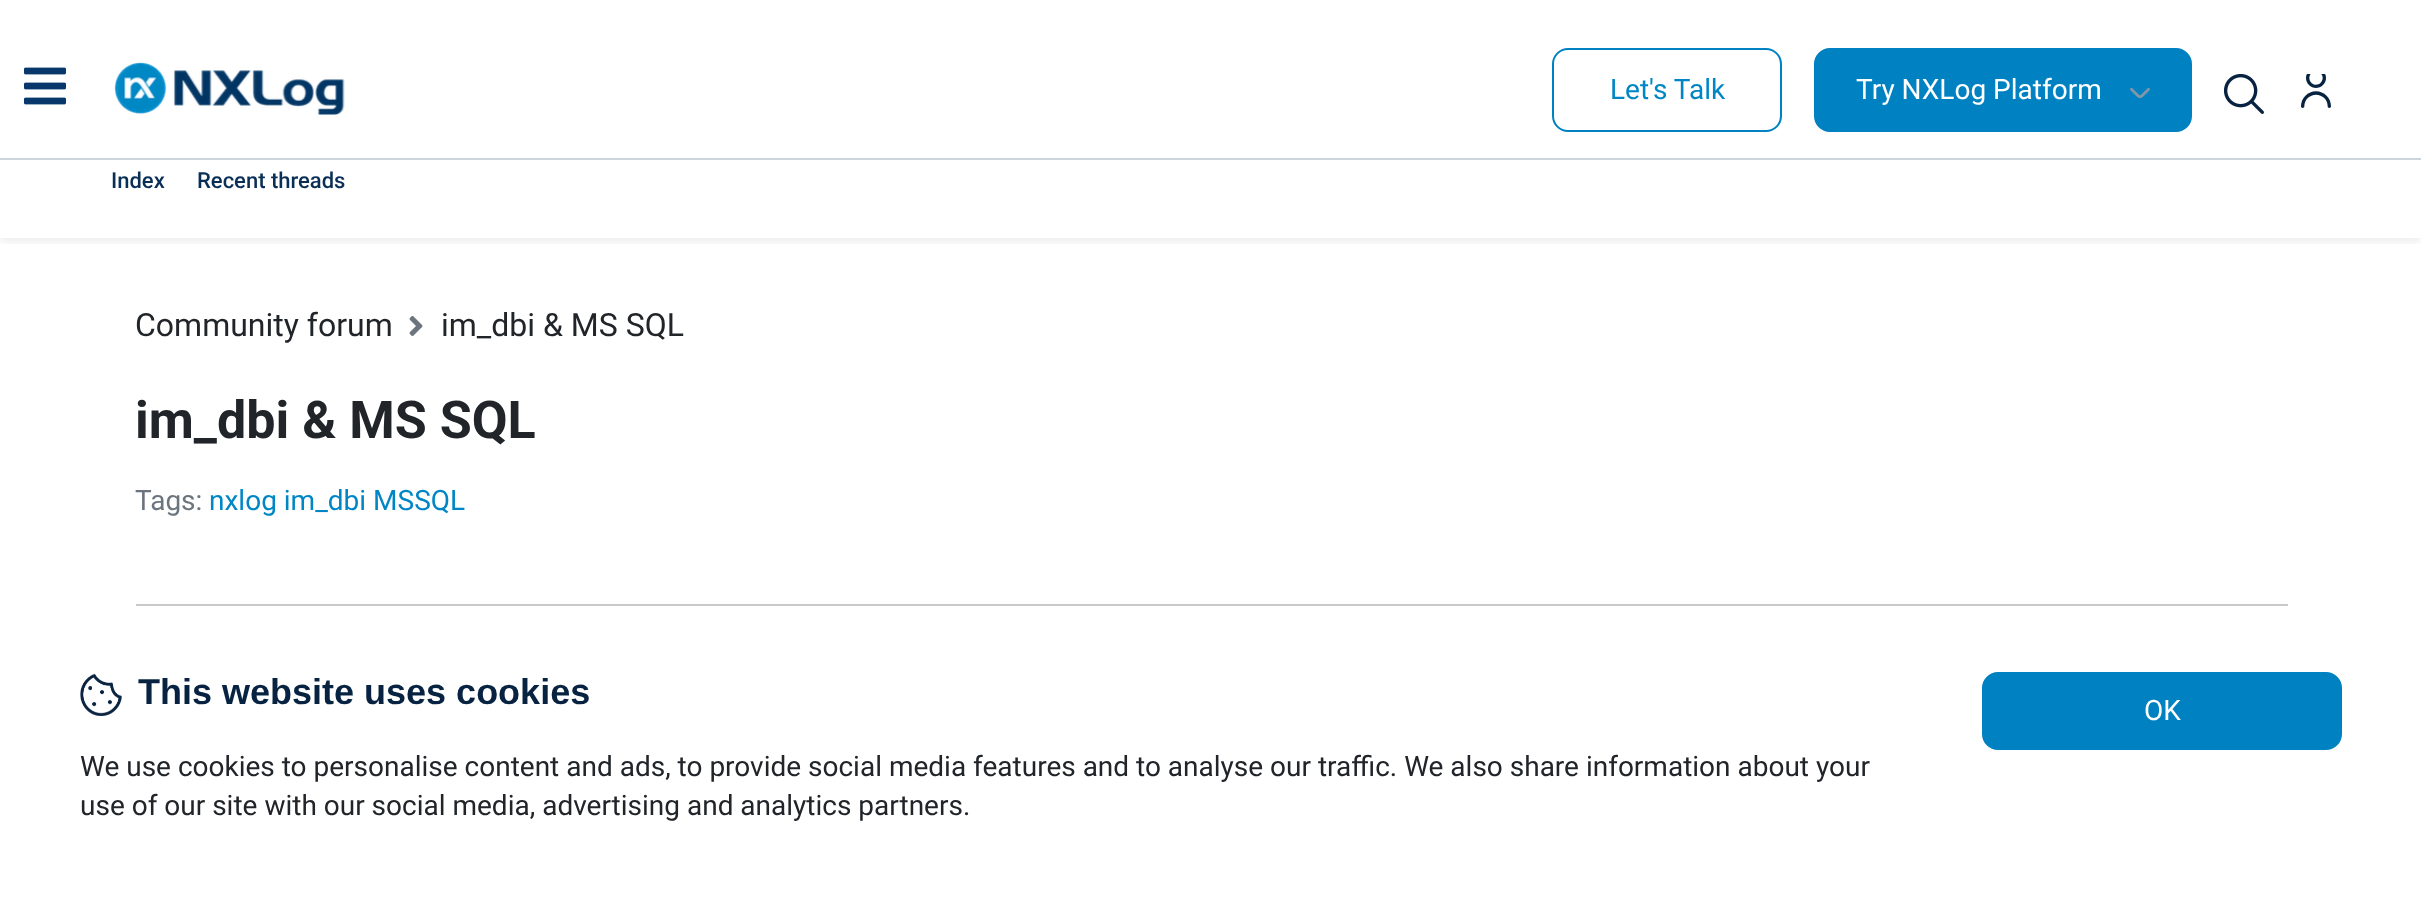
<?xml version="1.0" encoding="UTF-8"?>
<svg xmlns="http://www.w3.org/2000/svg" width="2421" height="907">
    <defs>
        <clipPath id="clip1"><rect x="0" y="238" width="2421" height="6"/></clipPath>
        <filter id="blur1" x="-50%" y="-200%" width="200%" height="500%"><feGaussianBlur stdDeviation="4"/></filter>
    </defs>
    <rect width="100%" height="100%" fill="#FFFFFF"/>
    <g clip-path="url(#clip1)">
        <rect x="0" y="100" width="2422" height="142" fill="#000000" fill-opacity="0.07" filter="url(#blur1)"/>
    </g>
    <rect x="0" y="158" width="2421" height="2" fill="#CCD4DC"/>
    <image x="24" y="67" width="42" height="38" href="img_01.png"/>
    <image x="114" y="62" width="231" height="53" href="img_02.png"/>
    <rect x="1553" y="49" width="228" height="82" rx="15" fill="none" stroke="#0081C1" stroke-width="2"/>
    <text x="1610" y="99" font-family="Roboto" font-size="28" fill="#0086C5">Let's Talk</text>
    <rect x="1815" y="49" width="376" height="82" rx="15" fill="#0081C1" stroke="#0081C1" stroke-width="2"/>
    <text x="1856" y="99" font-family="Roboto" font-size="28" fill="#FFFFFF">Try NXLog Platform</text>
    <image x="2130" y="88" width="20" height="10" href="img_03.png"/>
    <image x="2224" y="74" width="40" height="40" href="img_04.png"/>
    <image x="2301" y="74" width="30" height="34" href="img_05.png"/>
    <text x="111" y="188" font-family="Roboto" font-size="22" font-weight="500" fill="#092F56">Index</text>
    <text x="197" y="188" font-family="Roboto" font-size="22" font-weight="500" fill="#092F56">Recent threads</text>
    <text x="135" y="336" font-family="Roboto" font-size="32" fill="#212529">Community forum</text>
    <image x="409" y="316" width="14" height="20" href="img_06.png"/>
    <text x="441" y="336" font-family="Roboto" font-size="32" fill="#212529">im_dbi &amp; MS SQL</text>
    <text x="135" y="438" font-family="Roboto" font-size="52" font-weight="700" fill="#212529">im_dbi &amp; MS SQL</text>
    <text x="135" y="510" font-family="Roboto" font-size="28" fill="#6C757D">Tags:</text>
    <text x="209" y="510" font-family="Roboto" font-size="28" fill="#0086C5">nxlog im_dbi MSSQL</text>
    <rect x="136" y="604" width="2152" height="2" fill="#C8C9CA"/>
    <image x="80" y="673" width="42" height="43" href="img_07.png"/>
    <text x="138" y="704" font-family="Liberation Sans" font-size="36" font-weight="700" fill="#072341">This website uses cookies</text>
    <text font-family="Roboto" font-size="28" fill="#212529">
        <tspan x="80" y="776">We use cookies to personalise content and ads, to provide social media features and to analyse our traffic. We also share information about your</tspan>
        <tspan x="80" y="815">use of our site with our social media, advertising and analytics partners.</tspan>
    </text>
    <rect x="1983" y="673" width="358" height="76" rx="15" fill="#0081C1" stroke="#0081C1" stroke-width="2"/>
    <text x="2144" y="720" font-family="Roboto" font-size="28" fill="#FFFFFF">OK</text>
</svg>
